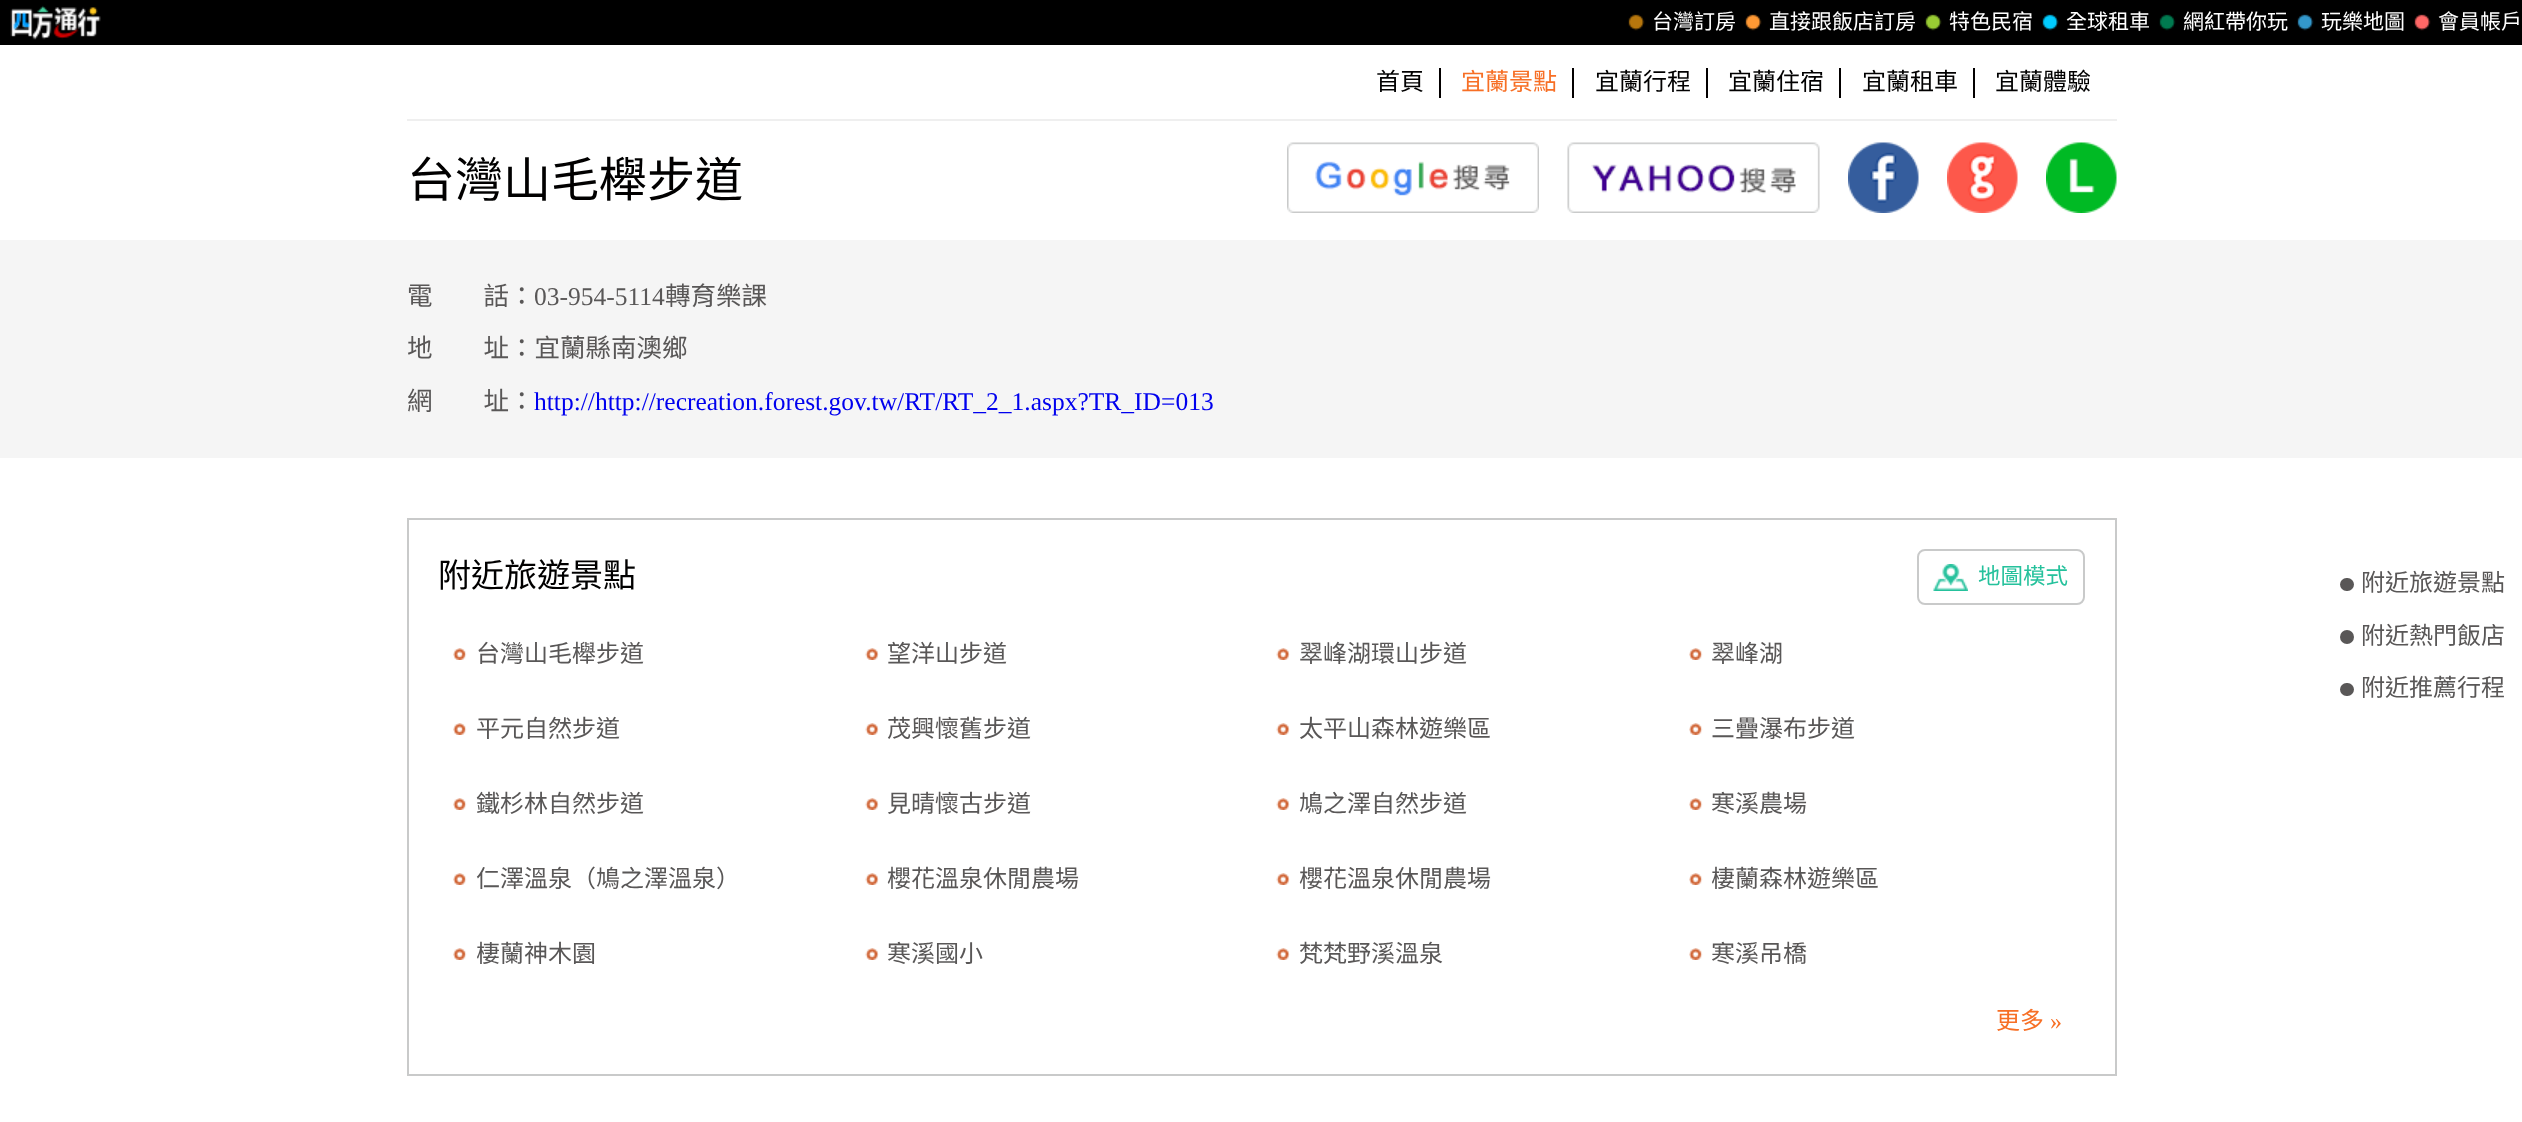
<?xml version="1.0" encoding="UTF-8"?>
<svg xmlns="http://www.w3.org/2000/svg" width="2522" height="1122">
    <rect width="100%" height="100%" fill="#FFFFFF"/>
    <rect x="0" y="0" width="2522" height="45" fill="#000000"/>
    <image x="10" y="5" width="91" height="35" href="img_01.png"/>
    <image x="1628" y="14" width="17" height="17" href="img_02.png"/>
    <text x="1652" y="29" font-family="Noto Sans CJK TC" font-size="21" fill="#FFFFFF">台灣訂房</text>
    <image x="1745" y="14" width="17" height="17" href="img_03.png"/>
    <text x="1769" y="29" font-family="Noto Sans CJK TC" font-size="21" fill="#FFFFFF">直接跟飯店訂房</text>
    <image x="1925" y="14" width="17" height="17" href="img_04.png"/>
    <text x="1949" y="29" font-family="Noto Sans CJK TC" font-size="21" fill="#FFFFFF">特色民宿</text>
    <image x="2042" y="14" width="17" height="17" href="img_05.png"/>
    <text x="2066" y="29" font-family="Noto Sans CJK TC" font-size="21" fill="#FFFFFF">全球租車</text>
    <image x="2159" y="14" width="17" height="17" href="img_06.png"/>
    <text x="2183" y="29" font-family="Noto Sans CJK TC" font-size="21" fill="#FFFFFF">網紅帶你玩</text>
    <image x="2297" y="14" width="17" height="17" href="img_07.png"/>
    <text x="2321" y="29" font-family="Noto Sans CJK TC" font-size="21" fill="#FFFFFF">玩樂地圖</text>
    <image x="2414" y="14" width="17" height="17" href="img_08.png"/>
    <text x="2438" y="29" font-family="Noto Sans CJK TC" font-size="21" fill="#FFFFFF">會員帳戶</text>
    <rect x="407" y="119" width="1710" height="2" fill="#EFEFEF"/>
    <rect x="1439" y="68" width="2" height="30" fill="#030000"/>
    <text x="1376" y="90" font-family="Noto Sans CJK TC" font-size="24" fill="#010000">首頁</text>
    <rect x="1572" y="68" width="2" height="30" fill="#030000"/>
    <text x="1461" y="90" font-family="Noto Sans CJK TC" font-size="24" fill="#F76F25">宜蘭景點</text>
    <rect x="1706" y="68" width="2" height="30" fill="#030000"/>
    <text x="1595" y="90" font-family="Noto Sans CJK TC" font-size="24" fill="#010000">宜蘭行程</text>
    <rect x="1839" y="68" width="2" height="30" fill="#030000"/>
    <text x="1728" y="90" font-family="Noto Sans CJK TC" font-size="24" fill="#010000">宜蘭住宿</text>
    <rect x="1973" y="68" width="2" height="30" fill="#030000"/>
    <text x="1862" y="90" font-family="Noto Sans CJK TC" font-size="24" fill="#010000">宜蘭租車</text>
    <text x="1995" y="90" font-family="Noto Sans CJK TC" font-size="24" fill="#010000">宜蘭體驗</text>
    <text x="407" y="197" font-family="Noto Sans CJK TC" font-size="48" fill="#010000">台灣山毛櫸步道</text>
    <image x="1287" y="142" width="252" height="71" href="img_09.png"/>
    <image x="1567" y="142" width="253" height="71" href="img_10.png"/>
    <image x="1848" y="142" width="71" height="71" href="img_11.png"/>
    <image x="1947" y="142" width="71" height="71" href="img_12.png"/>
    <image x="2046" y="142" width="71" height="71" href="img_13.png"/>
    <rect x="0" y="240" width="2522" height="218" fill="#F5F5F5"/>
    <text x="407" y="305" font-family="Noto Sans CJK TC" font-size="25.5" fill="#595757">電　　話：</text>
    <text x="534" y="305" font-family="Liberation Serif" font-size="25.5" fill="#595757">03-954-5114</text>
    <text x="665" y="305" font-family="Noto Sans CJK TC" font-size="25.5" fill="#595757">轉育樂課</text>
    <text x="407" y="357" font-family="Noto Sans CJK TC" font-size="25.5" fill="#595757">地　　址：宜蘭縣南澳鄉</text>
    <text x="407" y="410" font-family="Noto Sans CJK TC" font-size="25.5" fill="#595757">網　　址：</text>
    <text x="534" y="410" font-family="Liberation Serif" font-size="25.5" fill="#0000EE">http://http://recreation.forest.gov.tw/RT/RT_2_1.aspx?TR_ID=013</text>
    <rect x="408" y="519" width="1708" height="556" fill="none" stroke="#C9CACA" stroke-width="2"/>
    <text x="438" y="587" font-family="Noto Sans CJK TC" font-size="33" fill="#010000">附近旅遊景點</text>
    <image x="1933" y="564" width="35" height="27" href="img_14.png"/>
    <rect x="1918" y="550" width="166" height="54" rx="7" fill="none" stroke="#C9CACA" stroke-width="2"/>
    <text x="1978" y="584" font-family="Noto Sans CJK TC" font-size="22.5" fill="#25C19C">地圖模式</text>
    <image x="453" y="648" width="14" height="12" href="img_15.png"/>
    <text x="476" y="662" font-family="Noto Sans CJK TC" font-size="24" fill="#595757">台灣山毛櫸步道</text>
    <image x="865" y="648" width="14" height="12" href="img_16.png"/>
    <text x="887" y="662" font-family="Noto Sans CJK TC" font-size="24" fill="#595757">望洋山步道</text>
    <image x="1276" y="648" width="14" height="12" href="img_17.png"/>
    <text x="1299" y="662" font-family="Noto Sans CJK TC" font-size="24" fill="#595757">翠峰湖環山步道</text>
    <image x="1689" y="648" width="14" height="12" href="img_18.png"/>
    <text x="1711" y="662" font-family="Noto Sans CJK TC" font-size="24" fill="#595757">翠峰湖</text>
    <image x="453" y="723" width="14" height="12" href="img_15.png"/>
    <text x="476" y="737" font-family="Noto Sans CJK TC" font-size="24" fill="#595757">平元自然步道</text>
    <image x="865" y="723" width="14" height="12" href="img_16.png"/>
    <text x="887" y="737" font-family="Noto Sans CJK TC" font-size="24" fill="#595757">茂興懷舊步道</text>
    <image x="1276" y="723" width="14" height="12" href="img_17.png"/>
    <text x="1299" y="737" font-family="Noto Sans CJK TC" font-size="24" fill="#595757">太平山森林遊樂區</text>
    <image x="1689" y="723" width="14" height="12" href="img_18.png"/>
    <text x="1711" y="737" font-family="Noto Sans CJK TC" font-size="24" fill="#595757">三疊瀑布步道</text>
    <image x="453" y="798" width="14" height="12" href="img_15.png"/>
    <text x="476" y="812" font-family="Noto Sans CJK TC" font-size="24" fill="#595757">鐵杉林自然步道</text>
    <image x="865" y="798" width="14" height="12" href="img_16.png"/>
    <text x="887" y="812" font-family="Noto Sans CJK TC" font-size="24" fill="#595757">見晴懷古步道</text>
    <image x="1276" y="798" width="14" height="12" href="img_17.png"/>
    <text x="1299" y="812" font-family="Noto Sans CJK TC" font-size="24" fill="#595757">鳩之澤自然步道</text>
    <image x="1689" y="798" width="14" height="12" href="img_18.png"/>
    <text x="1711" y="812" font-family="Noto Sans CJK TC" font-size="24" fill="#595757">寒溪農場</text>
    <image x="453" y="873" width="14" height="12" href="img_15.png"/>
    <text x="476" y="887" font-family="Noto Sans CJK TC" font-size="24" fill="#595757">仁澤溫泉（鳩之澤溫泉）</text>
    <image x="865" y="873" width="14" height="12" href="img_16.png"/>
    <text x="887" y="887" font-family="Noto Sans CJK TC" font-size="24" fill="#595757">櫻花溫泉休閒農場</text>
    <image x="1276" y="873" width="14" height="12" href="img_17.png"/>
    <text x="1299" y="887" font-family="Noto Sans CJK TC" font-size="24" fill="#595757">櫻花溫泉休閒農場</text>
    <image x="1689" y="873" width="14" height="12" href="img_18.png"/>
    <text x="1711" y="887" font-family="Noto Sans CJK TC" font-size="24" fill="#595757">棲蘭森林遊樂區</text>
    <image x="453" y="948" width="14" height="12" href="img_15.png"/>
    <text x="476" y="962" font-family="Noto Sans CJK TC" font-size="24" fill="#595757">棲蘭神木園</text>
    <image x="865" y="948" width="14" height="12" href="img_16.png"/>
    <text x="887" y="962" font-family="Noto Sans CJK TC" font-size="24" fill="#595757">寒溪國小</text>
    <image x="1276" y="948" width="14" height="12" href="img_17.png"/>
    <text x="1299" y="962" font-family="Noto Sans CJK TC" font-size="24" fill="#595757">梵梵野溪溫泉</text>
    <image x="1689" y="948" width="14" height="12" href="img_18.png"/>
    <text x="1711" y="962" font-family="Noto Sans CJK TC" font-size="24" fill="#595757">寒溪吊橋</text>
    <text x="1996" y="1029" font-family="Noto Sans CJK TC" font-size="24" fill="#F76F25">更多</text>
    <text x="2050" y="1029" font-family="Liberation Serif" font-size="24" fill="#F76F25">»</text>
    <rect x="2340" y="578" width="14" height="13" rx="6.5" fill="#595757"/>
    <text x="2361" y="591" font-family="Noto Sans CJK TC" font-size="24" fill="#595757">附近旅遊景點</text>
    <circle cx="2347" cy="637" r="7" fill="#595757"/>
    <text x="2361" y="644" font-family="Noto Sans CJK TC" font-size="24" fill="#595757">附近熱門飯店</text>
    <rect x="2340" y="683" width="14" height="13" rx="6.5" fill="#595757"/>
    <text x="2361" y="696" font-family="Noto Sans CJK TC" font-size="24" fill="#595757">附近推薦行程</text>
</svg>
